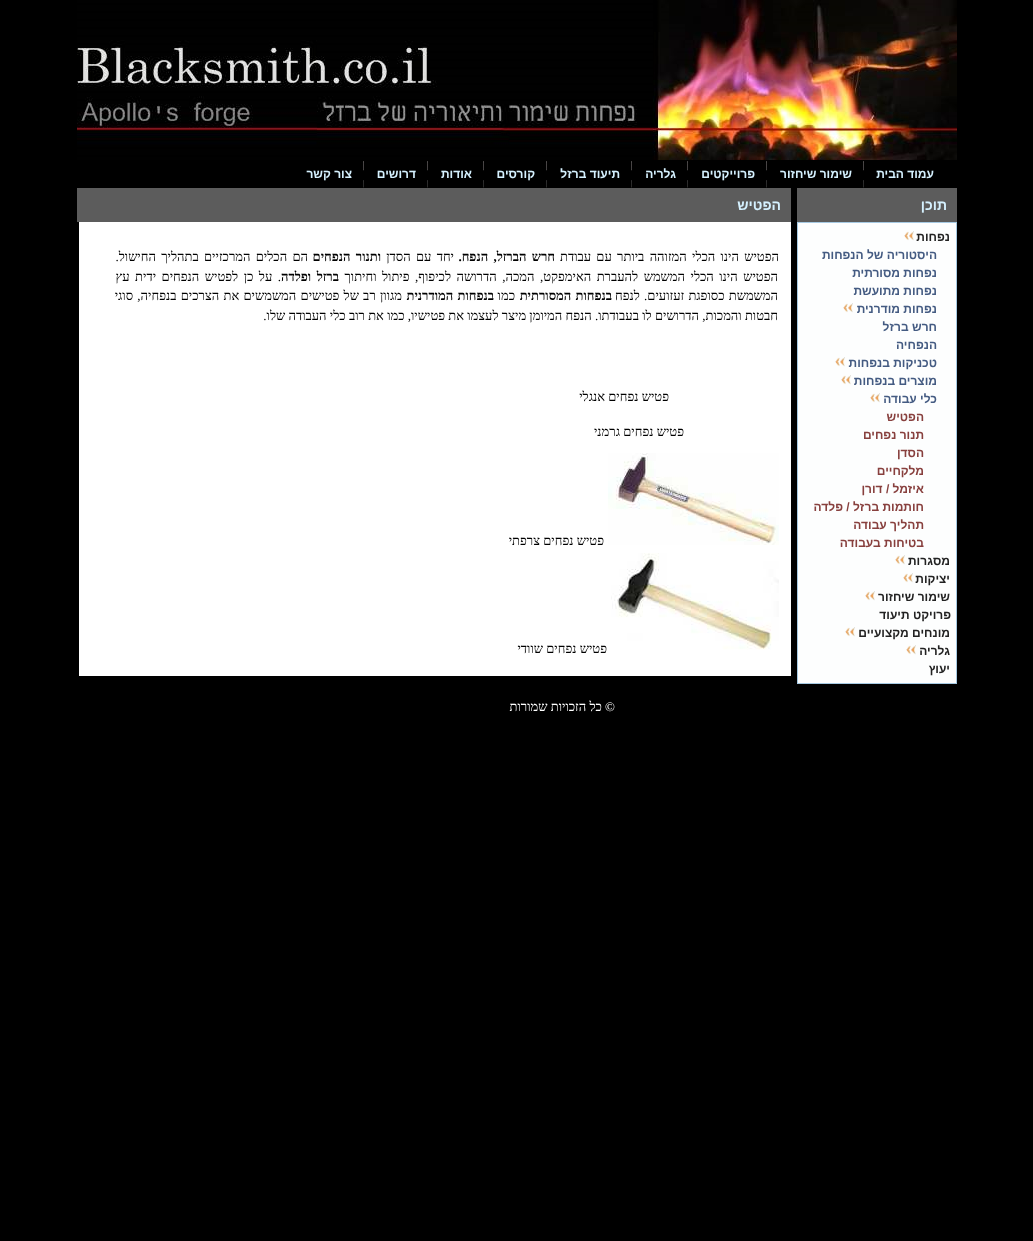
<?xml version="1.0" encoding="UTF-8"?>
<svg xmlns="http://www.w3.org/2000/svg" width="1033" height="1241">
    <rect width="100%" height="100%" fill="#000000"/>
    <image x="77" y="0" width="880" height="160" href="img_01.png"/>
    <text x="934" y="178" font-family="Liberation Sans" font-size="12" font-weight="700" direction="rtl" fill="#D5F1FF">עמוד הבית</text>
    <image x="863" y="161" width="1" height="27" href="img_02.png"/>
    <text x="852" y="178" font-family="Liberation Sans" font-size="12" font-weight="700" direction="rtl" fill="#D5F1FF">שימור שיחזור</text>
    <image x="766" y="161" width="1" height="27" href="img_02.png"/>
    <text x="755" y="178" font-family="Liberation Sans" font-size="12" font-weight="700" direction="rtl" fill="#D5F1FF">פרוייקטים</text>
    <image x="687" y="161" width="1" height="27" href="img_02.png"/>
    <text x="676" y="178" font-family="Liberation Sans" font-size="12" font-weight="700" direction="rtl" fill="#D5F1FF">גלריה</text>
    <image x="631" y="161" width="1" height="27" href="img_02.png"/>
    <text x="620" y="178" font-family="Liberation Sans" font-size="12" font-weight="700" direction="rtl" fill="#D5F1FF">תיעוד ברזל</text>
    <image x="546" y="161" width="1" height="27" href="img_02.png"/>
    <text x="535" y="178" font-family="Liberation Sans" font-size="12" font-weight="700" direction="rtl" fill="#D5F1FF">קורסים</text>
    <image x="483" y="161" width="1" height="27" href="img_02.png"/>
    <text x="472" y="178" font-family="Liberation Sans" font-size="12" font-weight="700" direction="rtl" fill="#D5F1FF">אודות</text>
    <image x="427" y="161" width="1" height="27" href="img_02.png"/>
    <text x="416" y="178" font-family="Liberation Sans" font-size="12" font-weight="700" direction="rtl" fill="#D5F1FF">דרושים</text>
    <image x="363" y="161" width="1" height="27" href="img_02.png"/>
    <text x="352" y="178" font-family="Liberation Sans" font-size="12" font-weight="700" direction="rtl" fill="#D5F1FF">צור קשר</text>
    <rect x="797" y="188" width="160" height="34" fill="#5C5C5C"/>
    <text x="947" y="210" font-family="Liberation Sans" font-size="14" font-weight="700" direction="rtl" fill="#D5F1FF">תוכן</text>
    <rect x="797.5" y="222.5" width="159" height="461" fill="#FDFEFE" stroke="#A6C9E2"/>
    <text x="950" y="241" font-family="Liberation Sans" font-size="12" font-weight="700" direction="rtl" fill="#222222">נפחות</text>
    <image x="904" y="231" width="10" height="10" href="img_03.png"/>
    <text font-family="Liberation Sans" font-size="12" font-weight="700" direction="rtl" fill="#445B82">
        <tspan x="937" y="259">היסטוריה של הנפחות</tspan>
        <tspan x="937" y="277">נפחות מסורתית</tspan>
        <tspan x="937" y="295">נפחות מתועשת</tspan>
        <tspan x="937" y="313">נפחות מודרנית</tspan>
    </text>
    <image x="843" y="303" width="10" height="10" href="img_03.png"/>
    <text font-family="Liberation Sans" font-size="12" font-weight="700" direction="rtl" fill="#445B82">
        <tspan x="937" y="331">חרש ברזל</tspan>
        <tspan x="937" y="349">הנפחיה</tspan>
        <tspan x="937" y="367">טכניקות בנפחות</tspan>
    </text>
    <image x="835" y="357" width="10" height="10" href="img_04.png"/>
    <text x="937" y="385" font-family="Liberation Sans" font-size="12" font-weight="700" direction="rtl" fill="#445B82">מוצרים בנפחות</text>
    <image x="841" y="375" width="10" height="10" href="img_04.png"/>
    <text x="937" y="403" font-family="Liberation Sans" font-size="12" font-weight="700" direction="rtl" fill="#445B82">כלי עבודה</text>
    <image x="870" y="393" width="10" height="10" href="img_03.png"/>
    <text font-family="Liberation Sans" font-size="12" font-weight="700" direction="rtl" fill="#88403E">
        <tspan x="924" y="421">הפטיש</tspan>
        <tspan x="924" y="439">תנור נפחים</tspan>
        <tspan x="924" y="457">הסדן</tspan>
        <tspan x="924" y="475">מלקחיים</tspan>
        <tspan x="924" y="493">איזמל / דורן</tspan>
        <tspan x="924" y="511">חותמות ברזל / פלדה</tspan>
        <tspan x="924" y="529">תהליך עבודה</tspan>
        <tspan x="924" y="547">בטיחות בעבודה</tspan>
    </text>
    <text x="950" y="565" font-family="Liberation Sans" font-size="12" font-weight="700" direction="rtl" fill="#222222">מסגרות</text>
    <image x="895" y="555" width="10" height="10" href="img_04.png"/>
    <text x="950" y="583" font-family="Liberation Sans" font-size="12" font-weight="700" direction="rtl" fill="#222222">יציקות</text>
    <image x="903" y="573" width="10" height="10" href="img_04.png"/>
    <text x="950" y="601" font-family="Liberation Sans" font-size="12" font-weight="700" direction="rtl" fill="#222222">שימור שיחזור</text>
    <image x="865" y="591" width="10" height="10" href="img_03.png"/>
    <text x="951" y="619" font-family="Liberation Sans" font-size="12" font-weight="700" direction="rtl" fill="#222222">פרויקט תיעוד</text>
    <text x="950" y="637" font-family="Liberation Sans" font-size="12" font-weight="700" direction="rtl" fill="#222222">מונחים מקצועיים</text>
    <image x="845" y="627" width="10" height="10" href="img_04.png"/>
    <text x="950" y="655" font-family="Liberation Sans" font-size="12" font-weight="700" direction="rtl" fill="#222222">גלריה</text>
    <image x="906" y="645" width="10" height="10" href="img_04.png"/>
    <text x="950" y="673" font-family="Liberation Sans" font-size="12" font-weight="700" direction="rtl" fill="#222222">יעוץ</text>
    <rect x="77" y="188" width="714" height="34" fill="#5C5C5C"/>
    <text x="781" y="210" font-family="Liberation Sans" font-size="14" font-weight="700" direction="rtl" fill="#D5F1FF">הפטיש</text>
    <rect x="79" y="222" width="712" height="454" fill="#FFFFFF"/>
    <text x="779" y="261" word-spacing="2" font-family="Liberation Serif" font-size="13" direction="rtl" fill="#000000">הפטיש הינו הכלי המזוהה ביותר עם עבודת</text>
    <text x="555" y="261" word-spacing="2" font-family="Liberation Serif" font-size="13" font-weight="700" direction="rtl" fill="#000000">חרש הברזל, הנפח.</text>
    <text x="454" y="261" word-spacing="2" font-family="Liberation Serif" font-size="13" direction="rtl" fill="#000000">יחד עם הסדן</text>
    <text x="381" y="261" word-spacing="2" font-family="Liberation Serif" font-size="13" font-weight="700" direction="rtl" fill="#000000">ותנור הנפחים</text>
    <text x="308" y="261" word-spacing="2" font-family="Liberation Serif" font-size="13" direction="rtl" fill="#000000">הם הכלים המרכזיים בתהליך החישול.</text>
    <text x="778" y="281" word-spacing="2.25" font-family="Liberation Serif" font-size="13" direction="rtl" fill="#000000">הפטיש הינו הכלי המשמש להעברת האימפקט, המכה, הדרושה לכיפוף, פיתול וחיתוך</text>
    <text x="339" y="281" word-spacing="2.25" font-family="Liberation Serif" font-size="13" font-weight="700" direction="rtl" fill="#000000">ברזל ופלדה</text>
    <text x="281" y="281" word-spacing="2.25" font-family="Liberation Serif" font-size="13" direction="rtl" fill="#000000">. על כן לפטיש הנפחים ידית עץ</text>
    <text x="778" y="300" word-spacing="1" font-family="Liberation Serif" font-size="13" direction="rtl" fill="#000000">המשמשת כסופגת זעזועים. לנפח</text>
    <text x="612" y="300" word-spacing="1" font-family="Liberation Serif" font-size="13" font-weight="700" direction="rtl" fill="#000000">בנפחות המסורתית</text>
    <text x="515" y="300" font-family="Liberation Serif" font-size="13" direction="rtl" fill="#000000">כמו</text>
    <text x="494" y="300" word-spacing="1" font-family="Liberation Serif" font-size="13" font-weight="700" direction="rtl" fill="#000000">בנפחות המודרנית</text>
    <text x="402" y="300" word-spacing="1" font-family="Liberation Serif" font-size="13" direction="rtl" fill="#000000">מגוון רב של פטישים המשמשים את הצרכים בנפחיה, סוגי</text>
    <text x="778" y="320" font-family="Liberation Serif" font-size="13" direction="rtl" fill="#000000">חבטות והמכות, הדרושים לו בעבודתו. הנפח המיומן מיצר לעצמו את פטישיו, כמו את רוב כלי העבודה שלו.</text>
    <text x="669" y="401" font-family="Liberation Serif" font-size="13" direction="rtl" fill="#000000">פטיש נפחים אנגלי</text>
    <text x="684" y="436" font-family="Liberation Serif" font-size="13" direction="rtl" fill="#000000">פטיש נפחים גרמני</text>
    <image x="608" y="453" width="171" height="92" href="img_05.png"/>
    <text x="604" y="545" font-family="Liberation Serif" font-size="13" direction="rtl" fill="#000000">פטיש נפחים צרפתי</text>
    <image x="611" y="553" width="168" height="97" href="img_06.png"/>
    <text x="607" y="653" font-family="Liberation Serif" font-size="13" direction="rtl" fill="#000000">פטיש נפחים שוודי</text>
    <text x="615" y="711" font-family="Liberation Serif" font-size="13" direction="rtl" fill="#FFFFFF">© כל הזכויות שמורות</text>
</svg>
